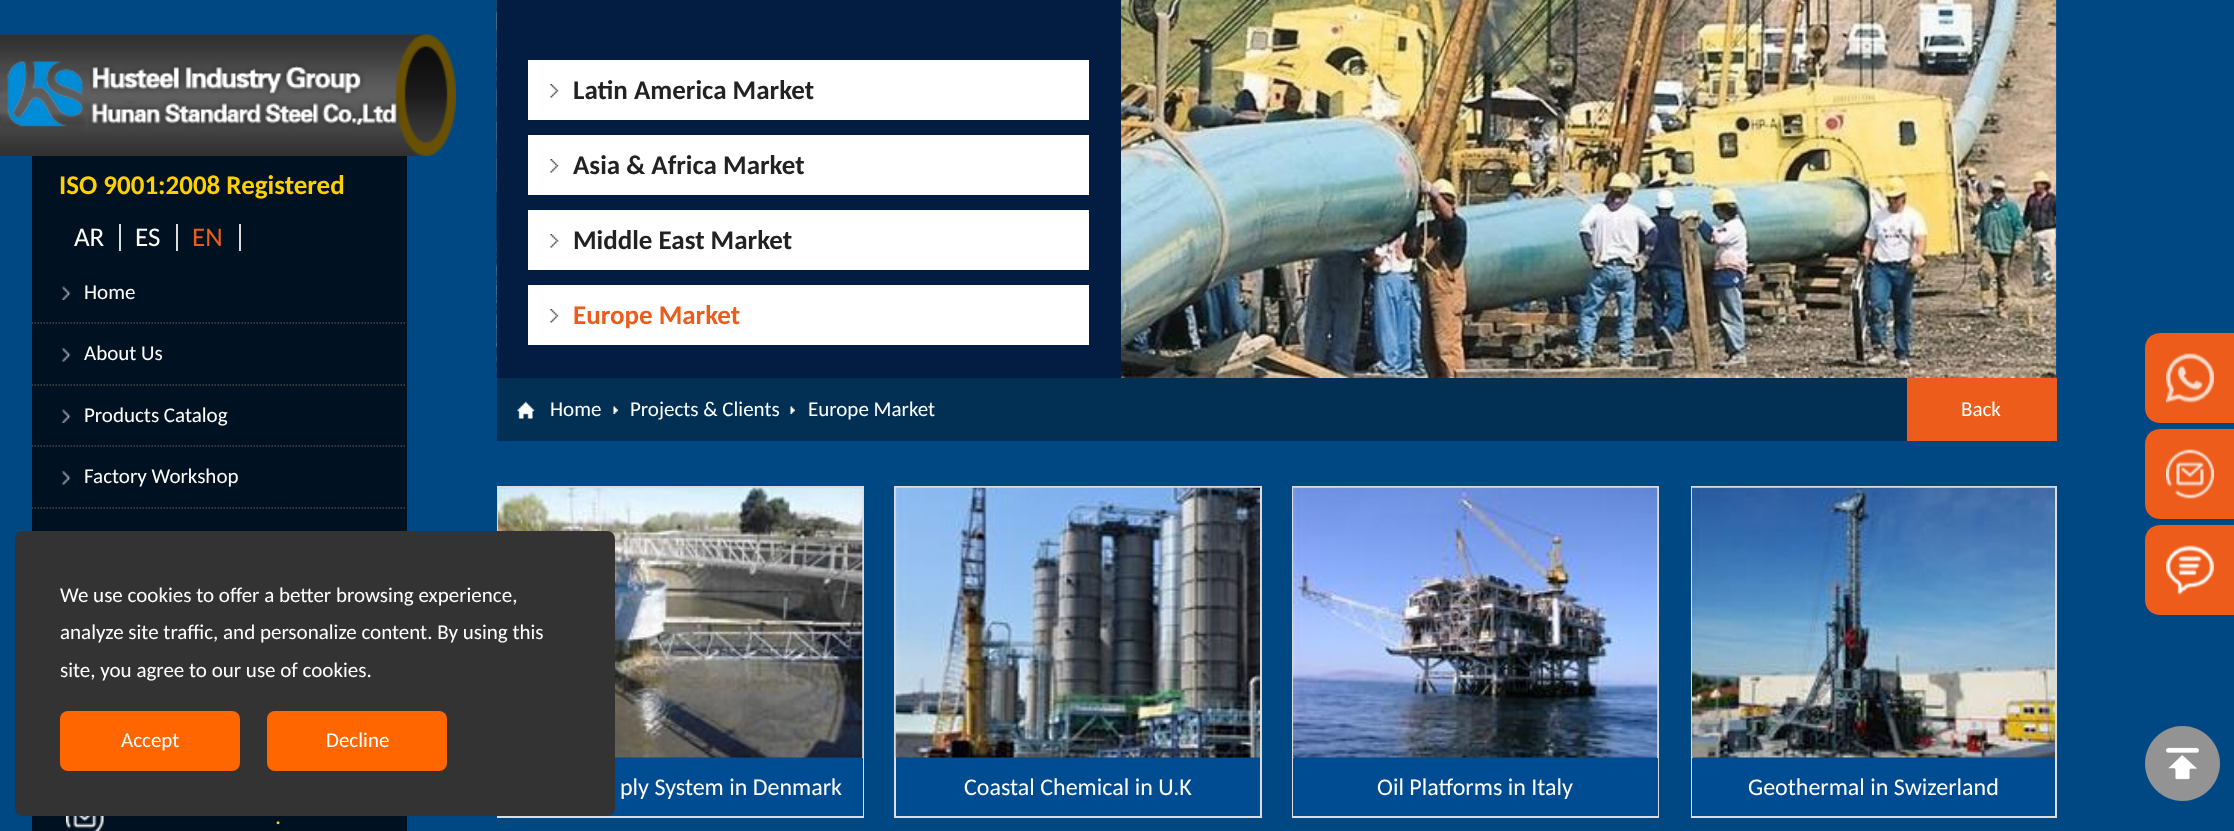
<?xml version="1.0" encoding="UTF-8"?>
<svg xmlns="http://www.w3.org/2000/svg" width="2234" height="831">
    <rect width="100%" height="100%" fill="#004884"/>
    <image x="0" y="34" width="456" height="122" href="img_01.png"/>
    <rect x="32" y="156" width="375" height="675" fill="#001221"/>
    <text x="59" y="194" font-family="Carlito" font-size="27" font-weight="700" fill="#FDD000">ISO 9001:2008 Registered</text>
    <rect x="119" y="224" width="2" height="27" fill="#DDDDDD"/>
    <text x="74" y="246" font-family="Carlito" font-size="27" fill="#FFFFFF">AR</text>
    <rect x="176" y="224" width="2" height="27" fill="#DDDDDD"/>
    <text x="135" y="246" font-family="Carlito" font-size="27" fill="#FFFFFF">ES</text>
    <rect x="239" y="224" width="2" height="27" fill="#DDDDDD"/>
    <text x="192" y="246" font-family="Carlito" font-size="27" fill="#ED5C1B">EN</text>
    <image x="61" y="286" width="10" height="14" href="img_02.png"/>
    <path d="M 31.5 323 H 406.5" fill="none" stroke="#474642" stroke-width="1.5" stroke-dasharray="1.5 1.5"/>
    <text x="84" y="299" font-family="Carlito" font-size="21" fill="#FFFFFF">Home</text>
    <image x="61" y="348" width="10" height="14" href="img_03.png"/>
    <path d="M 31.5 385 H 406.5" fill="none" stroke="#474642" stroke-width="1.5" stroke-dasharray="1.5 1.5"/>
    <text x="84" y="360" font-family="Carlito" font-size="21" fill="#FFFFFF">About Us</text>
    <image x="61" y="409" width="10" height="14" href="img_02.png"/>
    <path d="M 31.5 446 H 406.5" fill="none" stroke="#474642" stroke-width="1.5" stroke-dasharray="1.5 1.5"/>
    <text x="84" y="422" font-family="Carlito" font-size="21" fill="#FFFFFF">Products Catalog</text>
    <image x="61" y="471" width="10" height="14" href="img_03.png"/>
    <path d="M 31.5 508 H 406.5" fill="none" stroke="#474642" stroke-width="1.5" stroke-dasharray="1.5 1.5"/>
    <text x="84" y="483" font-family="Carlito" font-size="21" fill="#FFFFFF">Factory Workshop</text>
    <image x="66" y="816" width="38" height="15" href="img_04.png"/>
    <text x="275" y="824" font-family="Carlito" font-size="24" fill="#FDD000">.</text>
    <image x="496" y="0" width="1561" height="378" href="img_05.png"/>
    <rect x="497" y="0" width="624" height="378" fill="#021C42"/>
    <rect x="528" y="60" width="561" height="60" fill="#FFFFFF"/>
    <image x="550" y="84" width="9" height="14" href="img_06.png"/>
    <text x="573" y="99" font-family="Carlito" font-size="27" font-weight="700" fill="#222222">Latin America Market</text>
    <rect x="528" y="135" width="561" height="60" fill="#FFFFFF"/>
    <image x="550" y="159" width="9" height="14" href="img_06.png"/>
    <text x="573" y="174" font-family="Carlito" font-size="27" font-weight="700" fill="#222222">Asia &amp; Africa Market</text>
    <rect x="528" y="210" width="561" height="60" fill="#FFFFFF"/>
    <image x="550" y="234" width="9" height="14" href="img_06.png"/>
    <text x="573" y="249" font-family="Carlito" font-size="27" font-weight="700" fill="#222222">Middle East Market</text>
    <rect x="528" y="285" width="561" height="60" fill="#FFFFFF"/>
    <image x="550" y="309" width="9" height="14" href="img_06.png"/>
    <text x="573" y="324" font-family="Carlito" font-size="27" font-weight="700" fill="#ED5C1B">Europe Market</text>
    <rect x="497" y="378" width="1410" height="63" fill="#022F54"/>
    <image x="517" y="401" width="18" height="18" href="img_07.png"/>
    <text x="550" y="416" font-family="Carlito" font-size="21" fill="#FFFFFF">Home</text>
    <image x="613" y="406" width="5" height="8" href="img_08.png"/>
    <text x="630" y="416" font-family="Carlito" font-size="21" fill="#FFFFFF">Projects &amp; Clients</text>
    <image x="790" y="406" width="5" height="8" href="img_09.png"/>
    <text x="808" y="416" font-family="Carlito" font-size="21" fill="#FFFFFF">Europe Market</text>
    <rect x="1907" y="378" width="150" height="63" fill="#ED5C1B"/>
    <text x="1961" y="416" font-family="Carlito" font-size="21" fill="#FFFFFF">Back</text>
    <rect x="498" y="487" width="365" height="330" fill="none" stroke="#DDDDDD" stroke-width="2"/>
    <image x="498" y="487" width="365" height="271" href="img_10.png"/>
    <rect x="607" y="758" width="256" height="58" fill="#004C92"/>
    <text x="620" y="795" font-family="Carlito" font-size="24" fill="#FFFFFF">ply System in Denmark</text>
    <rect x="895" y="487" width="366" height="330" fill="none" stroke="#DDDDDD" stroke-width="2"/>
    <image x="895" y="487" width="365" height="271" href="img_11.png"/>
    <rect x="896" y="758" width="364" height="58" fill="#004C92"/>
    <text x="964" y="795" font-family="Carlito" font-size="24" fill="#FFFFFF">Coastal Chemical in U.K</text>
    <rect x="1293" y="487" width="365" height="330" fill="none" stroke="#DDDDDD" stroke-width="2"/>
    <image x="1293" y="487" width="365" height="271" href="img_12.png"/>
    <rect x="1293" y="758" width="365" height="58" fill="#004C92"/>
    <text x="1377" y="795" font-family="Carlito" font-size="24" fill="#FFFFFF">Oil Platforms in Italy</text>
    <rect x="1692" y="487" width="364" height="330" fill="none" stroke="#DDDDDD" stroke-width="2"/>
    <image x="1692" y="487" width="363" height="271" href="img_13.png"/>
    <rect x="1692" y="758" width="363" height="58" fill="#004C92"/>
    <text x="1748" y="795" font-family="Carlito" font-size="24" fill="#FFFFFF">Geothermal in Swizerland</text>
    <path d="M 2160 333 H 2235 V 423 H 2160 C 2151.5 423 2145 416.5 2145 408 V 348 C 2145 339.5 2151.5 333 2160 333 Z" fill="#ED5C1B"/>
    <image x="2166" y="353" width="48" height="50" href="img_14.png"/>
    <path d="M 2160 429 H 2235 V 519 H 2160 C 2151.5 519 2145 512.5 2145 504 V 444 C 2145 435.5 2151.5 429 2160 429 Z" fill="#ED5C1B"/>
    <image x="2166" y="449" width="48" height="50" href="img_15.png"/>
    <path d="M 2160 525 H 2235 V 615 H 2160 C 2151.5 615 2145 608.5 2145 600 V 540 C 2145 531.5 2151.5 525 2160 525 Z" fill="#ED5C1B"/>
    <image x="2166" y="545" width="48" height="50" href="img_16.png"/>
    <rect x="15" y="531" width="600" height="285" rx="8" fill="#333333"/>
    <text font-family="Carlito" font-size="21" fill="#FFFFFF">
        <tspan x="60" y="602">We use cookies to offer a better browsing experience,</tspan>
        <tspan x="60" y="639">analyze site traffic, and personalize content. By using this</tspan>
        <tspan x="60" y="677">site, you agree to our use of cookies.</tspan>
    </text>
    <rect x="60" y="711" width="180" height="60" rx="8" fill="#FF6600"/>
    <text x="121" y="747" font-family="Carlito" font-size="21" fill="#FFFFFF">Accept</text>
    <rect x="267" y="711" width="180" height="60" rx="8" fill="#FF6600"/>
    <text x="326" y="747" font-family="Carlito" font-size="21" fill="#FFFFFF">Decline</text>
    <image x="2145" y="726" width="75" height="75" href="img_17.png"/>
</svg>
